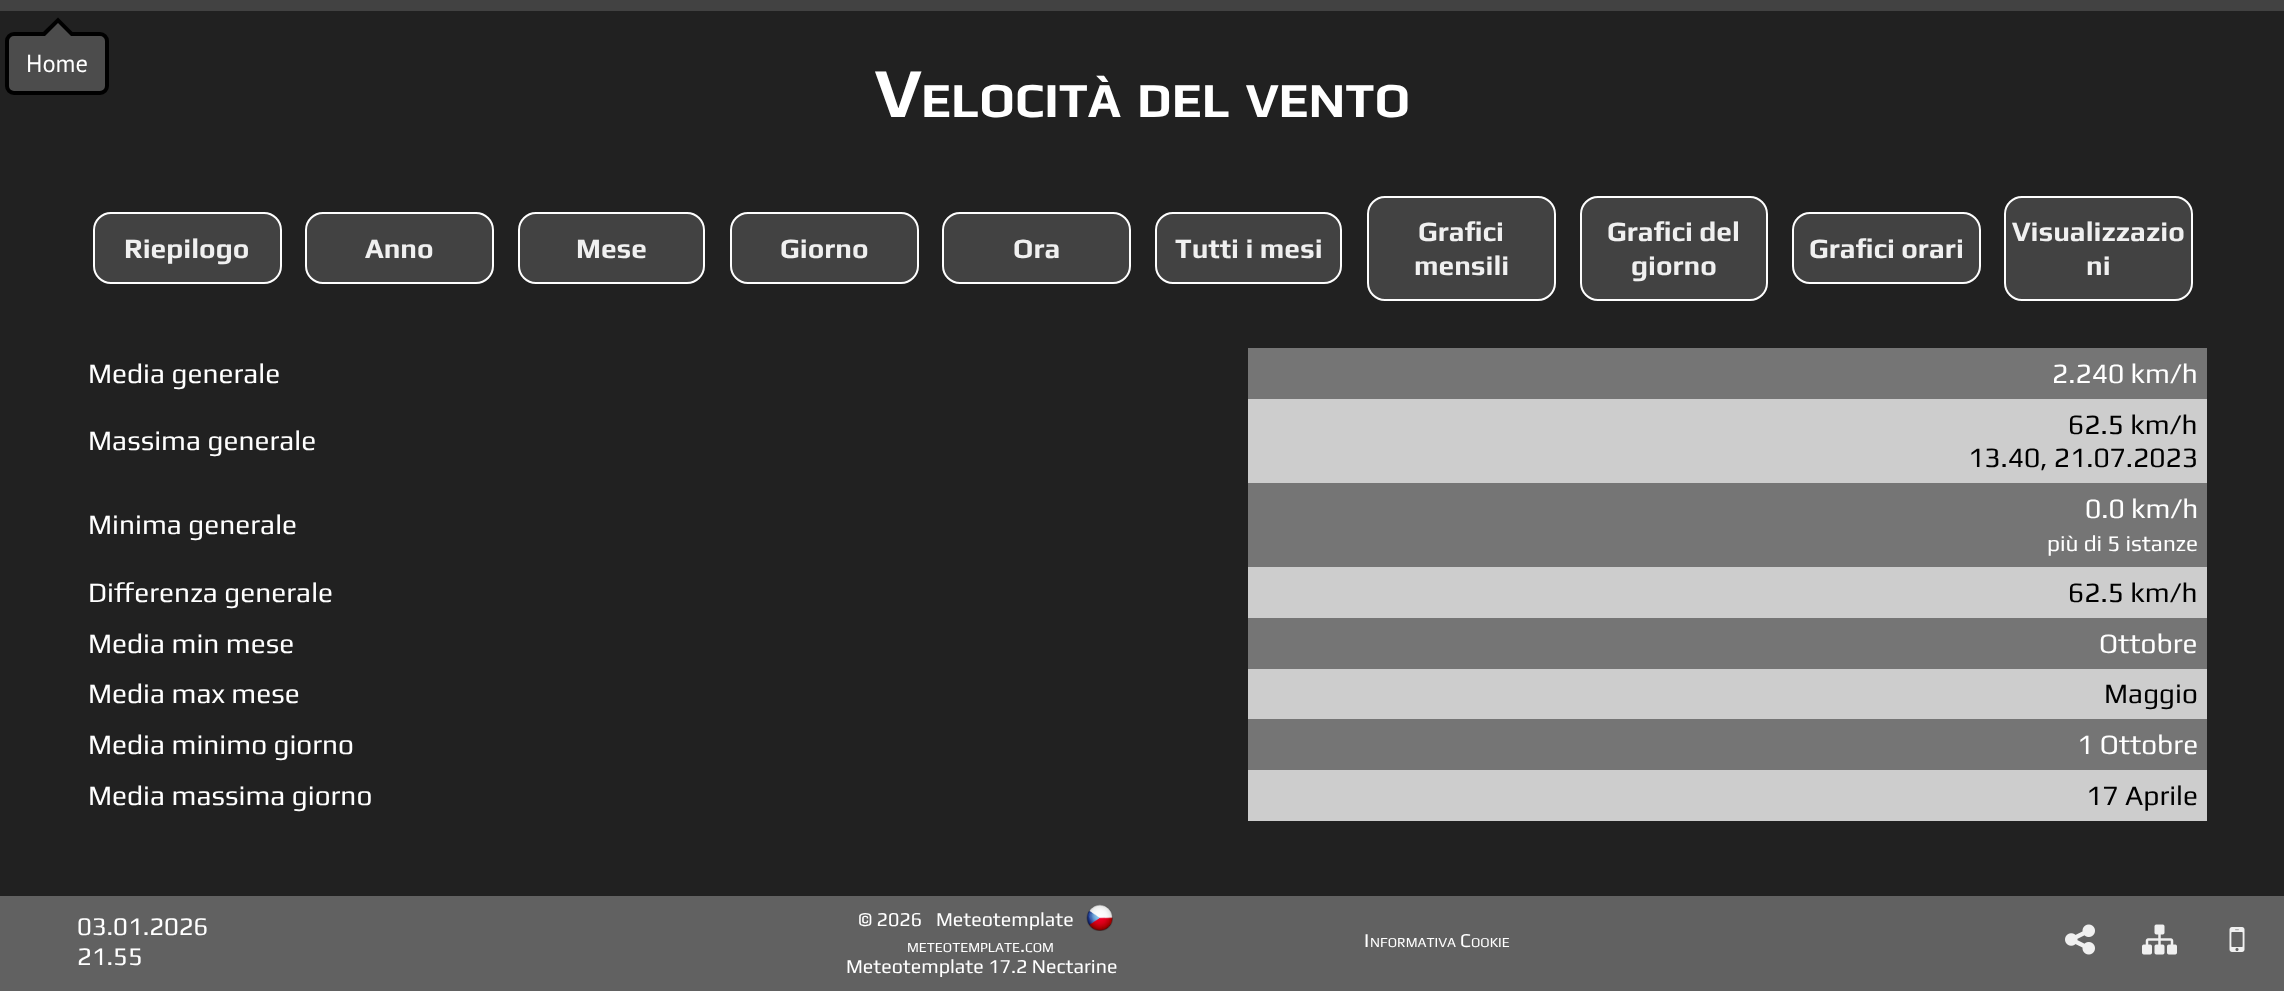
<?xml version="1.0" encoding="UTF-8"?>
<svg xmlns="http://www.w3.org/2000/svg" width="2284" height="991">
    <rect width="100%" height="100%" fill="#212121"/>
    <rect x="0" y="0" width="2284" height="11" fill="#424242"/>
    <rect x="7" y="34" width="100" height="59" rx="7" fill="#4C4C4C" stroke="#000000" stroke-width="4"/>
    <path d="M 73.5 33 H 42 L 58 17.5 Z" fill="#000000"/>
    <path d="M 72 37 H 44 L 58 23 Z" fill="#4C4C4C"/>
    <text x="26" y="72" font-family="PT Sans" font-size="24.5" fill="#FFFFFF">Home</text>
    <text x="875" y="117" font-family="Play" font-size="70" font-weight="700" fill="#FFFFFF">V</text>
    <text x="921" y="117" font-family="Play" font-size="49" font-weight="700" fill="#FFFFFF">ELOCITÀ</text>
    <text x="1137" y="117" font-family="Play" font-size="49" font-weight="700" fill="#FFFFFF">DEL</text>
    <text x="1246" y="117" font-family="Play" font-size="49" font-weight="700" fill="#FFFFFF">VENTO</text>
    <rect x="94" y="213" width="187" height="70" rx="17" fill="#424242" stroke="#FEFEFE" stroke-width="2"/>
    <text x="124" y="258" font-family="Play" font-size="28" font-weight="700" fill="#F0F0F0">Riepilogo</text>
    <rect x="306" y="213" width="187" height="70" rx="17" fill="#424242" stroke="#FEFEFE" stroke-width="2"/>
    <text x="365" y="258" font-family="Play" font-size="28" font-weight="700" fill="#F0F0F0">Anno</text>
    <rect x="519" y="213" width="185" height="70" rx="17" fill="#424242" stroke="#FEFEFE" stroke-width="2"/>
    <text x="576" y="258" font-family="Play" font-size="28" font-weight="700" fill="#F0F0F0">Mese</text>
    <rect x="731" y="213" width="187" height="70" rx="17" fill="#424242" stroke="#FEFEFE" stroke-width="2"/>
    <text x="780" y="258" font-family="Play" font-size="28" font-weight="700" fill="#F0F0F0">Giorno</text>
    <rect x="943" y="213" width="187" height="70" rx="17" fill="#424242" stroke="#FEFEFE" stroke-width="2"/>
    <text x="1013" y="258" font-family="Play" font-size="28" font-weight="700" fill="#F0F0F0">Ora</text>
    <rect x="1156" y="213" width="185" height="70" rx="17" fill="#424242" stroke="#FEFEFE" stroke-width="2"/>
    <text x="1175" y="258" font-family="Play" font-size="28" font-weight="700" fill="#F0F0F0">Tutti i mesi</text>
    <rect x="1368" y="197" width="187" height="103" rx="17" fill="#424242" stroke="#FEFEFE" stroke-width="2"/>
    <text x="1418" y="241" font-family="Play" font-size="28" font-weight="700" fill="#F0F0F0">Grafici</text>
    <text x="1414" y="275" font-family="Play" font-size="28" font-weight="700" fill="#F0F0F0">mensili</text>
    <rect x="1581" y="197" width="186" height="103" rx="17" fill="#424242" stroke="#FEFEFE" stroke-width="2"/>
    <text x="1607" y="241" font-family="Play" font-size="28" font-weight="700" fill="#F0F0F0">Grafici del</text>
    <text x="1631" y="275" font-family="Play" font-size="28" font-weight="700" fill="#F0F0F0">giorno</text>
    <rect x="1793" y="213" width="187" height="70" rx="17" fill="#424242" stroke="#FEFEFE" stroke-width="2"/>
    <text x="1809" y="258" font-family="Play" font-size="28" font-weight="700" fill="#F0F0F0">Grafici orari</text>
    <rect x="2005" y="197" width="187" height="103" rx="17" fill="#424242" stroke="#FEFEFE" stroke-width="2"/>
    <text x="2012" y="241" font-family="Play" font-size="28" font-weight="700" fill="#F0F0F0">Visualizzazio</text>
    <text x="2086" y="275" font-family="Play" font-size="28" font-weight="700" fill="#F0F0F0">ni</text>
    <rect x="1248" y="348" width="959" height="51" fill="#757575"/>
    <text x="88" y="383" font-family="Play" font-size="28" fill="#FFFFFF">Media generale</text>
    <text x="2052" y="383" font-family="Play" font-size="28" fill="#FFFFFF">2.240 km/h</text>
    <rect x="1248" y="399" width="959" height="84" fill="#CDCDCD"/>
    <text x="88" y="450" font-family="Play" font-size="28" fill="#FFFFFF">Massima generale</text>
    <text x="2068" y="434" font-family="Play" font-size="28" fill="#000000">62.5 km/h</text>
    <text x="1968" y="467" font-family="Play" font-size="28" fill="#000000">13.40, 21.07.2023</text>
    <rect x="1248" y="483" width="959" height="84" fill="#757575"/>
    <text x="88" y="534" font-family="Play" font-size="28" fill="#FFFFFF">Minima generale</text>
    <text x="2085" y="518" font-family="Play" font-size="28" fill="#FFFFFF">0.0 km/h</text>
    <text x="2047" y="551" font-family="Play" font-size="22.5" fill="#FFFFFF">più di 5 istanze</text>
    <rect x="1248" y="567" width="959" height="51" fill="#CDCDCD"/>
    <text x="88" y="602" font-family="Play" font-size="28" fill="#FFFFFF">Differenza generale</text>
    <text x="2068" y="602" font-family="Play" font-size="28" fill="#000000">62.5 km/h</text>
    <rect x="1248" y="618" width="959" height="51" fill="#757575"/>
    <text x="88" y="653" font-family="Play" font-size="28" fill="#FFFFFF">Media min mese</text>
    <text x="2099" y="653" font-family="Play" font-size="28" fill="#FFFFFF">Ottobre</text>
    <rect x="1248" y="669" width="959" height="50" fill="#CDCDCD"/>
    <text x="88" y="703" font-family="Play" font-size="28" fill="#FFFFFF">Media max mese</text>
    <text x="2104" y="703" font-family="Play" font-size="28" fill="#000000">Maggio</text>
    <rect x="1248" y="719" width="959" height="51" fill="#757575"/>
    <text x="88" y="754" font-family="Play" font-size="28" fill="#FFFFFF">Media minimo giorno</text>
    <text x="2077" y="754" font-family="Play" font-size="28" fill="#FFFFFF">1 Ottobre</text>
    <rect x="1248" y="770" width="959" height="51" fill="#CDCDCD"/>
    <text x="88" y="805" font-family="Play" font-size="28" fill="#FFFFFF">Media massima giorno</text>
    <text x="2086" y="805" font-family="Play" font-size="28" fill="#000000">17 Aprile</text>
    <rect x="0" y="896" width="2284" height="95" fill="#616161"/>
    <text font-family="Play" font-size="25.5" fill="#FFFFFF">
        <tspan x="77" y="935">03.01.2026</tspan>
        <tspan x="77" y="965">21.55</tspan>
    </text>
    <text x="858" y="926" font-family="Play" font-size="19.6" fill="#FFFFFF">© 2026</text>
    <text x="936" y="926" font-family="Play" font-size="19.6" fill="#FFFFFF">Meteotemplate</text>
    <image x="1086" y="904" width="27" height="27" href="img_01.png"/>
    <text x="907" y="952" font-family="Play" font-size="13.75" fill="#FFFFFF">METEOTEMPLATE</text>
    <text x="1020" y="952" font-family="Play" font-size="19.6" fill="#FFFFFF">.</text>
    <text x="1025" y="952" font-family="Play" font-size="13.75" fill="#FFFFFF">COM</text>
    <text x="846" y="973" font-family="Play" font-size="19.6" fill="#FFFFFF">Meteotemplate 17.2 Nectarine</text>
    <text x="1364" y="947" font-family="Play" font-size="19.6" fill="#FFFFFF">I</text>
    <text x="1370" y="947" font-family="Play" font-size="13.75" fill="#FFFFFF">NFORMATIVA</text>
    <text x="1460" y="947" font-family="Play" font-size="19.6" fill="#FFFFFF">C</text>
    <text x="1471" y="947" font-family="Play" font-size="13.75" fill="#FFFFFF">OOKIE</text>
    <image x="2065" y="924" width="30" height="31" href="img_02.png"/>
    <image x="2142" y="924" width="35" height="31" href="img_03.png"/>
    <image x="2229" y="927" width="16" height="25" href="img_04.png"/>
</svg>
